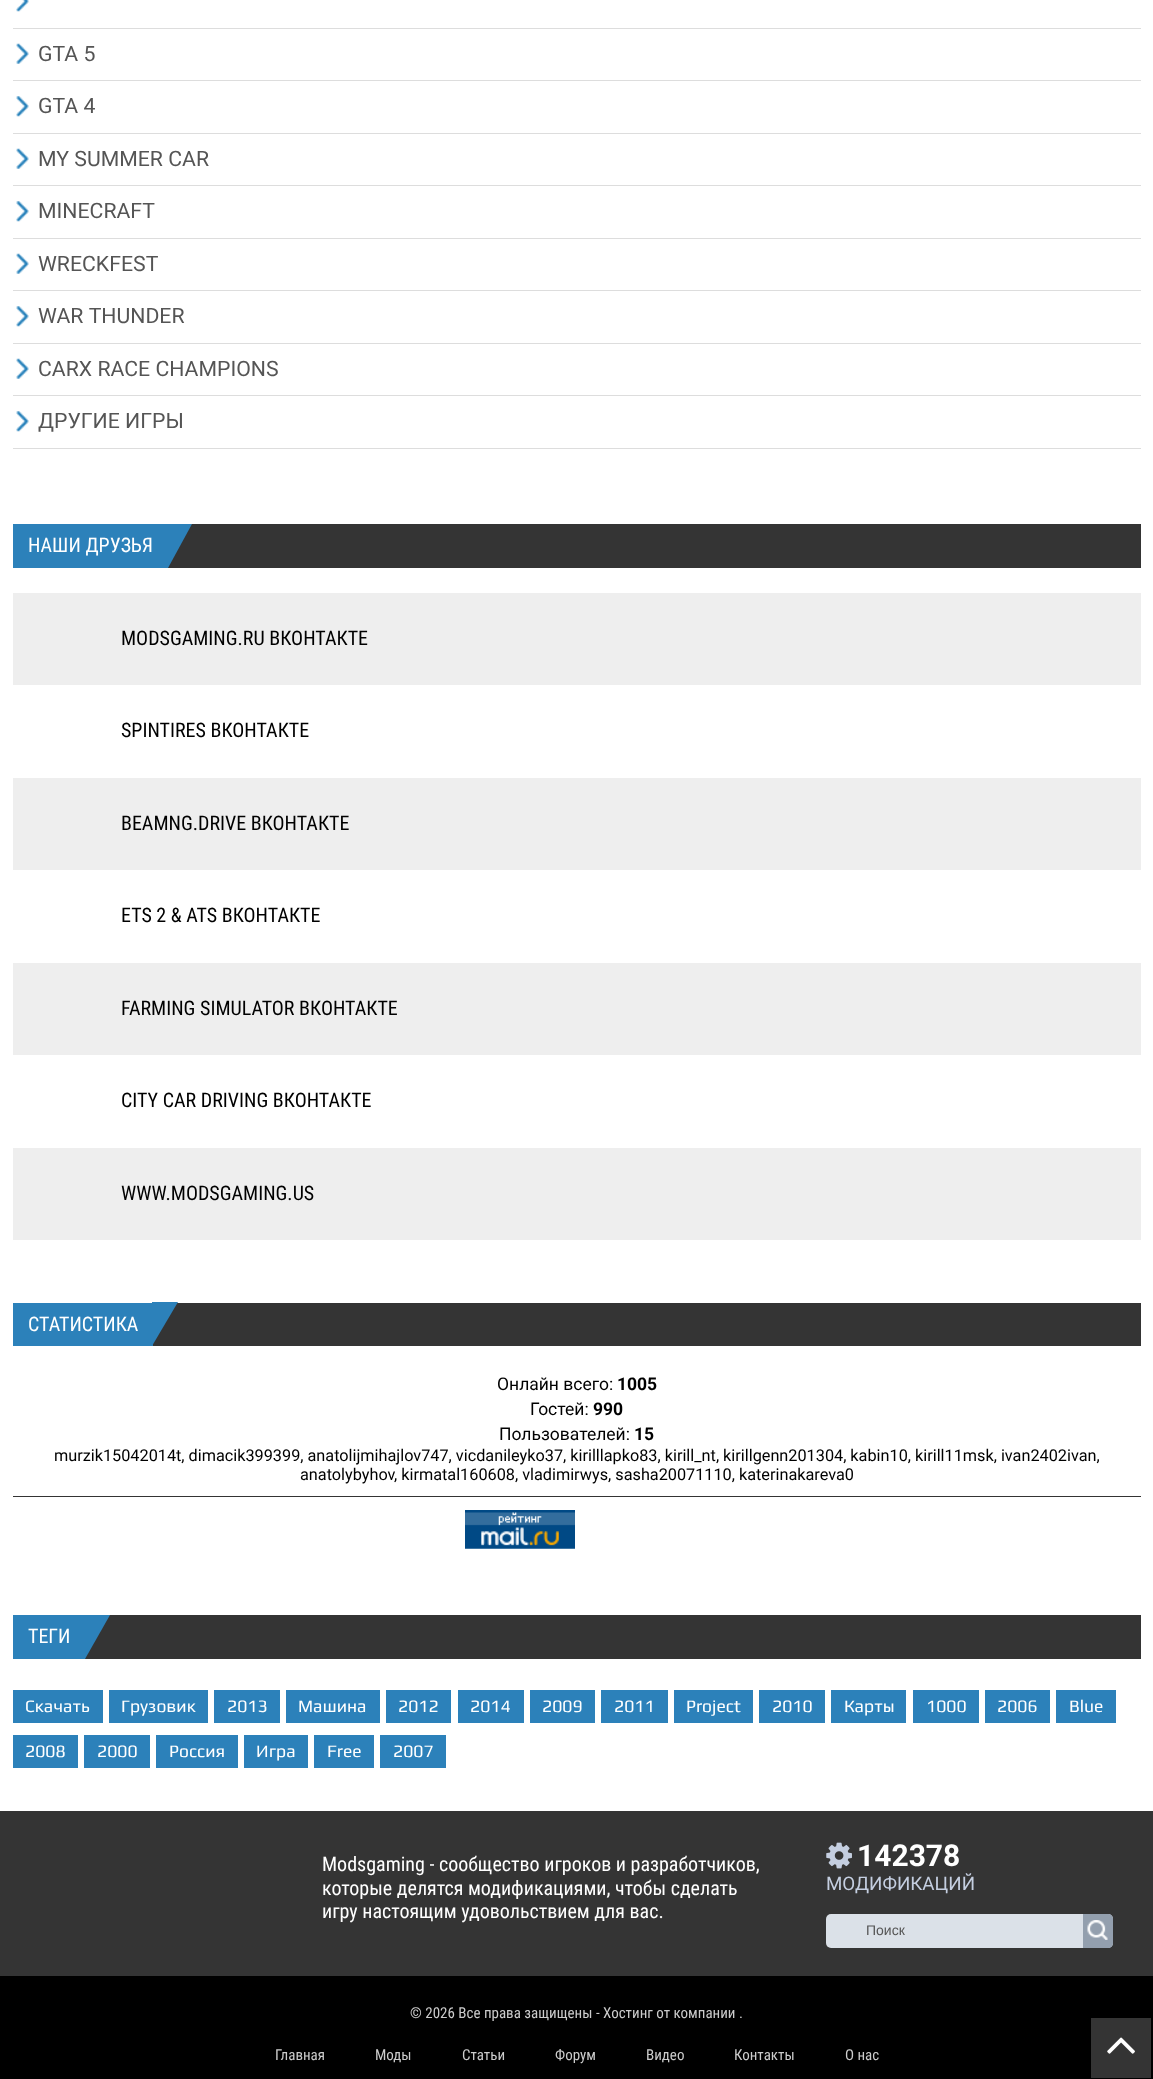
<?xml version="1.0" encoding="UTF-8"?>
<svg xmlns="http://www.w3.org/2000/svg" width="1153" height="2079">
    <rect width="100%" height="100%" fill="#FFFFFF"/>
    <image x="16" y="0" width="13" height="12" href="img_01.png"/>
    <rect x="13" y="28" width="1128" height="1" fill="#DDDDDD"/>
    <image x="16" y="43" width="13" height="21" href="img_02.png"/>
    <rect x="13" y="80" width="1128" height="1" fill="#DDDDDD"/>
    <text x="38" y="61" font-family="Roboto" font-size="21.25" fill="#555555">GTA 5</text>
    <image x="16" y="96" width="13" height="21" href="img_03.png"/>
    <rect x="13" y="133" width="1128" height="1" fill="#DDDDDD"/>
    <text x="38" y="113" font-family="Roboto" font-size="21.25" fill="#555555">GTA 4</text>
    <image x="16" y="148" width="13" height="21" href="img_02.png"/>
    <rect x="13" y="185" width="1128" height="1" fill="#DDDDDD"/>
    <text x="38" y="166" font-family="Roboto" font-size="21.25" fill="#555555">MY SUMMER CAR</text>
    <image x="16" y="201" width="13" height="21" href="img_04.png"/>
    <rect x="13" y="238" width="1128" height="1" fill="#DDDDDD"/>
    <text x="38" y="218" font-family="Roboto" font-size="21.25" fill="#555555">MINECRAFT</text>
    <image x="16" y="253" width="13" height="21" href="img_02.png"/>
    <rect x="13" y="290" width="1128" height="1" fill="#DDDDDD"/>
    <text x="38" y="271" font-family="Roboto" font-size="21.25" fill="#555555">WRECKFEST</text>
    <image x="16" y="306" width="13" height="21" href="img_04.png"/>
    <rect x="13" y="343" width="1128" height="1" fill="#DDDDDD"/>
    <text x="38" y="323" font-family="Roboto" font-size="21.25" fill="#555555">WAR THUNDER</text>
    <image x="16" y="358" width="13" height="21" href="img_02.png"/>
    <rect x="13" y="395" width="1128" height="1" fill="#DDDDDD"/>
    <text x="38" y="376" font-family="Roboto" font-size="21.25" fill="#555555">CARX RACE CHAMPIONS</text>
    <image x="16" y="411" width="13" height="21" href="img_04.png"/>
    <rect x="13" y="448" width="1128" height="1" fill="#DDDDDD"/>
    <text x="38" y="428" font-family="Roboto" font-size="21.25" fill="#555555">ДРУГИЕ ИГРЫ</text>
    <rect x="168" y="524" width="973" height="44" fill="#343434"/>
    <rect x="13" y="524" width="155" height="44" fill="#2C81BA"/>
    <text x="28" y="552" font-family="Roboto Condensed" font-size="20" fill="#FFFFFF">НАШИ ДРУЗЬЯ</text>
    <path d="M 168 524 H 192 L 168 568 Z" fill="#2C81BA"/>
    <rect x="13" y="593" width="1128" height="92" fill="#EEEEEE"/>
    <text x="121" y="645" font-family="Roboto Condensed" font-size="20" fill="#000000">MODSGAMING.RU ВКОНТАКТЕ</text>
    <text x="121" y="737" font-family="Roboto Condensed" font-size="20" fill="#000000">SPINTIRES ВКОНТАКТЕ</text>
    <rect x="13" y="778" width="1128" height="92" fill="#EEEEEE"/>
    <text x="121" y="830" font-family="Roboto Condensed" font-size="20" fill="#000000">BEAMNG.DRIVE ВКОНТАКТЕ</text>
    <text x="121" y="922" font-family="Roboto Condensed" font-size="20" fill="#000000">ETS 2 &amp; ATS ВКОНТАКТЕ</text>
    <rect x="13" y="963" width="1128" height="92" fill="#EEEEEE"/>
    <text x="121" y="1015" font-family="Roboto Condensed" font-size="20" fill="#000000">FARMING SIMULATOR ВКОНТАКТЕ</text>
    <text x="121" y="1107" font-family="Roboto Condensed" font-size="20" fill="#000000">CITY CAR DRIVING ВКОНТАКТЕ</text>
    <rect x="13" y="1148" width="1128" height="92" fill="#EEEEEE"/>
    <text x="121" y="1200" font-family="Roboto Condensed" font-size="20" fill="#000000">WWW.MODSGAMING.US</text>
    <rect x="153" y="1303" width="988" height="43" fill="#343434"/>
    <rect x="13" y="1303" width="140" height="43" fill="#2C81BA"/>
    <text x="28" y="1331" font-family="Roboto Condensed" font-size="20" fill="#FFFFFF">СТАТИСТИКА</text>
    <path d="M 152 1302 H 178 L 152 1346 Z" fill="#2C81BA"/>
    <text x="497" y="1390" font-family="Roboto" font-size="17.5" fill="#000000">Онлайн всего:</text>
    <text x="617" y="1390" font-family="Roboto" font-size="17.5" font-weight="700" fill="#000000">1005</text>
    <text x="530" y="1415" font-family="Roboto" font-size="17.5" fill="#000000">Гостей:</text>
    <text x="593" y="1415" font-family="Roboto" font-size="17.5" font-weight="700" fill="#000000">990</text>
    <text x="499" y="1440" font-family="Roboto" font-size="17.5" fill="#000000">Пользователей:</text>
    <text x="634" y="1440" font-family="Roboto" font-size="17.5" font-weight="700" fill="#000000">15</text>
    <text x="54" y="1461" font-family="Roboto" font-size="16.25" fill="#000000">murzik15042014t, dimacik399399, anatolijmihajlov747, vicdanileyko37, kirilllapko83, kirill_nt, kirillgenn201304, kabin10, kirill11msk, ivan2402ivan,</text>
    <text x="300" y="1480" font-family="Roboto" font-size="16.25" fill="#000000">anatolybyhov</text>
    <text x="394" y="1480" font-family="Roboto" font-size="16.25" fill="#000000">, kirmatal160608, vladimirwys, sasha20071110, katerinakareva0</text>
    <rect x="13" y="1496" width="1128" height="1" fill="#343434"/>
    <image x="465" y="1510" width="110" height="39" href="img_05.png"/>
    <rect x="85" y="1615" width="1056" height="44" fill="#343434"/>
    <rect x="13" y="1615" width="72" height="44" fill="#2C81BA"/>
    <text x="28" y="1643" font-family="Roboto Condensed" font-size="20" fill="#FFFFFF">ТЕГИ</text>
    <path d="M 85 1615 H 110 L 85 1659 Z" fill="#2C81BA"/>
    <rect x="13" y="1690" width="90" height="33" fill="#2C81BA"/>
    <text x="25" y="1712" font-family="Play" font-size="17.5" fill="#FFFFFF">Скачать</text>
    <rect x="109" y="1690" width="99" height="33" fill="#2C81BA"/>
    <text x="121" y="1712" font-family="Play" font-size="17.5" fill="#FFFFFF">Грузовик</text>
    <rect x="214" y="1690" width="66" height="33" fill="#2C81BA"/>
    <text x="227" y="1712" font-family="Play" font-size="17.5" fill="#FFFFFF">2013</text>
    <rect x="286" y="1690" width="94" height="33" fill="#2C81BA"/>
    <text x="298" y="1712" font-family="Play" font-size="17.5" fill="#FFFFFF">Машина</text>
    <rect x="386" y="1690" width="65" height="33" fill="#2C81BA"/>
    <text x="398" y="1712" font-family="Play" font-size="17.5" fill="#FFFFFF">2012</text>
    <rect x="458" y="1690" width="66" height="33" fill="#2C81BA"/>
    <text x="470" y="1712" font-family="Play" font-size="17.5" fill="#FFFFFF">2014</text>
    <rect x="530" y="1690" width="65" height="33" fill="#2C81BA"/>
    <text x="542" y="1712" font-family="Play" font-size="17.5" fill="#FFFFFF">2009</text>
    <rect x="601" y="1690" width="67" height="33" fill="#2C81BA"/>
    <text x="614" y="1712" font-family="Play" font-size="17.5" fill="#FFFFFF">2011</text>
    <rect x="674" y="1690" width="79" height="33" fill="#2C81BA"/>
    <text x="686" y="1712" font-family="Play" font-size="17.5" fill="#FFFFFF">Project</text>
    <rect x="759" y="1690" width="66" height="33" fill="#2C81BA"/>
    <text x="772" y="1712" font-family="Play" font-size="17.5" fill="#FFFFFF">2010</text>
    <rect x="831" y="1690" width="75" height="33" fill="#2C81BA"/>
    <text x="844" y="1712" font-family="Play" font-size="17.5" fill="#FFFFFF">Карты</text>
    <rect x="913" y="1690" width="66" height="33" fill="#2C81BA"/>
    <text x="926" y="1712" font-family="Play" font-size="17.5" fill="#FFFFFF">1000</text>
    <rect x="985" y="1690" width="65" height="33" fill="#2C81BA"/>
    <text x="997" y="1712" font-family="Play" font-size="17.5" fill="#FFFFFF">2006</text>
    <rect x="1056" y="1690" width="60" height="33" fill="#2C81BA"/>
    <text x="1069" y="1712" font-family="Play" font-size="17.5" fill="#FFFFFF">Blue</text>
    <rect x="13" y="1735" width="65" height="33" fill="#2C81BA"/>
    <text x="25" y="1757" font-family="Play" font-size="17.5" fill="#FFFFFF">2008</text>
    <rect x="84" y="1735" width="66" height="33" fill="#2C81BA"/>
    <text x="97" y="1757" font-family="Play" font-size="17.5" fill="#FFFFFF">2000</text>
    <rect x="156" y="1735" width="82" height="33" fill="#2C81BA"/>
    <text x="169" y="1757" font-family="Play" font-size="17.5" fill="#FFFFFF">Россия</text>
    <rect x="244" y="1735" width="64" height="33" fill="#2C81BA"/>
    <text x="256" y="1757" font-family="Play" font-size="17.5" fill="#FFFFFF">Игра</text>
    <rect x="314" y="1735" width="60" height="33" fill="#2C81BA"/>
    <text x="327" y="1757" font-family="Play" font-size="17.5" fill="#FFFFFF">Free</text>
    <rect x="380" y="1735" width="66" height="33" fill="#2C81BA"/>
    <text x="393" y="1757" font-family="Play" font-size="17.5" fill="#FFFFFF">2007</text>
    <rect x="0" y="1811" width="1153" height="165" fill="#343434"/>
    <text font-family="Roboto Condensed" font-size="20" fill="#FFFFFF">
        <tspan x="322" y="1871">Modsgaming - сообщество игроков и разработчиков,</tspan>
        <tspan x="322" y="1895">которые делятся модификациями, чтобы сделать</tspan>
        <tspan x="322" y="1918">игру настоящим удовольствием для вас.</tspan>
    </text>
    <image x="826" y="1842" width="26" height="27" href="img_06.png"/>
    <text x="857" y="1866" font-family="Roboto" font-size="30" font-weight="700" fill="#FFFFFF">142378</text>
    <text x="826" y="1890" font-family="Roboto" font-size="18.75" fill="#C4CEE0">МОДИФИКАЦИЙ</text>
    <rect x="826" y="1914" width="287" height="34" rx="5" fill="#DBE1E8"/>
    <text x="866" y="1935" font-family="Liberation Sans" font-size="14" fill="#555555">Поиск</text>
    <path d="M 1083 1914 H 1108 C 1111 1914 1113 1916 1113 1919 V 1943 C 1113 1946 1111 1948 1108 1948 H 1083 Z" fill="#939FAE"/>
    <image x="1087" y="1920" width="21" height="20" href="img_07.png"/>
    <rect x="0" y="1976" width="1153" height="103" fill="#000000"/>
    <text x="410" y="2018" font-family="Roboto Condensed" font-size="15" fill="#CCCCCC">© 2026 Все права защищены - Хостинг от компании .</text>
    <text x="275" y="2060" font-family="Roboto Condensed" font-size="15" fill="#CCCCCC">Главная</text>
    <text x="375" y="2060" font-family="Roboto Condensed" font-size="15" fill="#CCCCCC">Моды</text>
    <text x="462" y="2060" font-family="Roboto Condensed" font-size="15" fill="#CCCCCC">Статьи</text>
    <text x="555" y="2060" font-family="Roboto Condensed" font-size="15" fill="#CCCCCC">Форум</text>
    <text x="646" y="2060" font-family="Roboto Condensed" font-size="15" fill="#CCCCCC">Видео</text>
    <text x="734" y="2060" font-family="Roboto Condensed" font-size="15" fill="#CCCCCC">Контакты</text>
    <text x="845" y="2060" font-family="Roboto Condensed" font-size="15" fill="#CCCCCC">О нас</text>
    <rect x="1091" y="2018" width="60" height="60" fill="#343434"/>
    <image x="1107" y="2037" width="28" height="17" href="img_08.png"/>
</svg>
